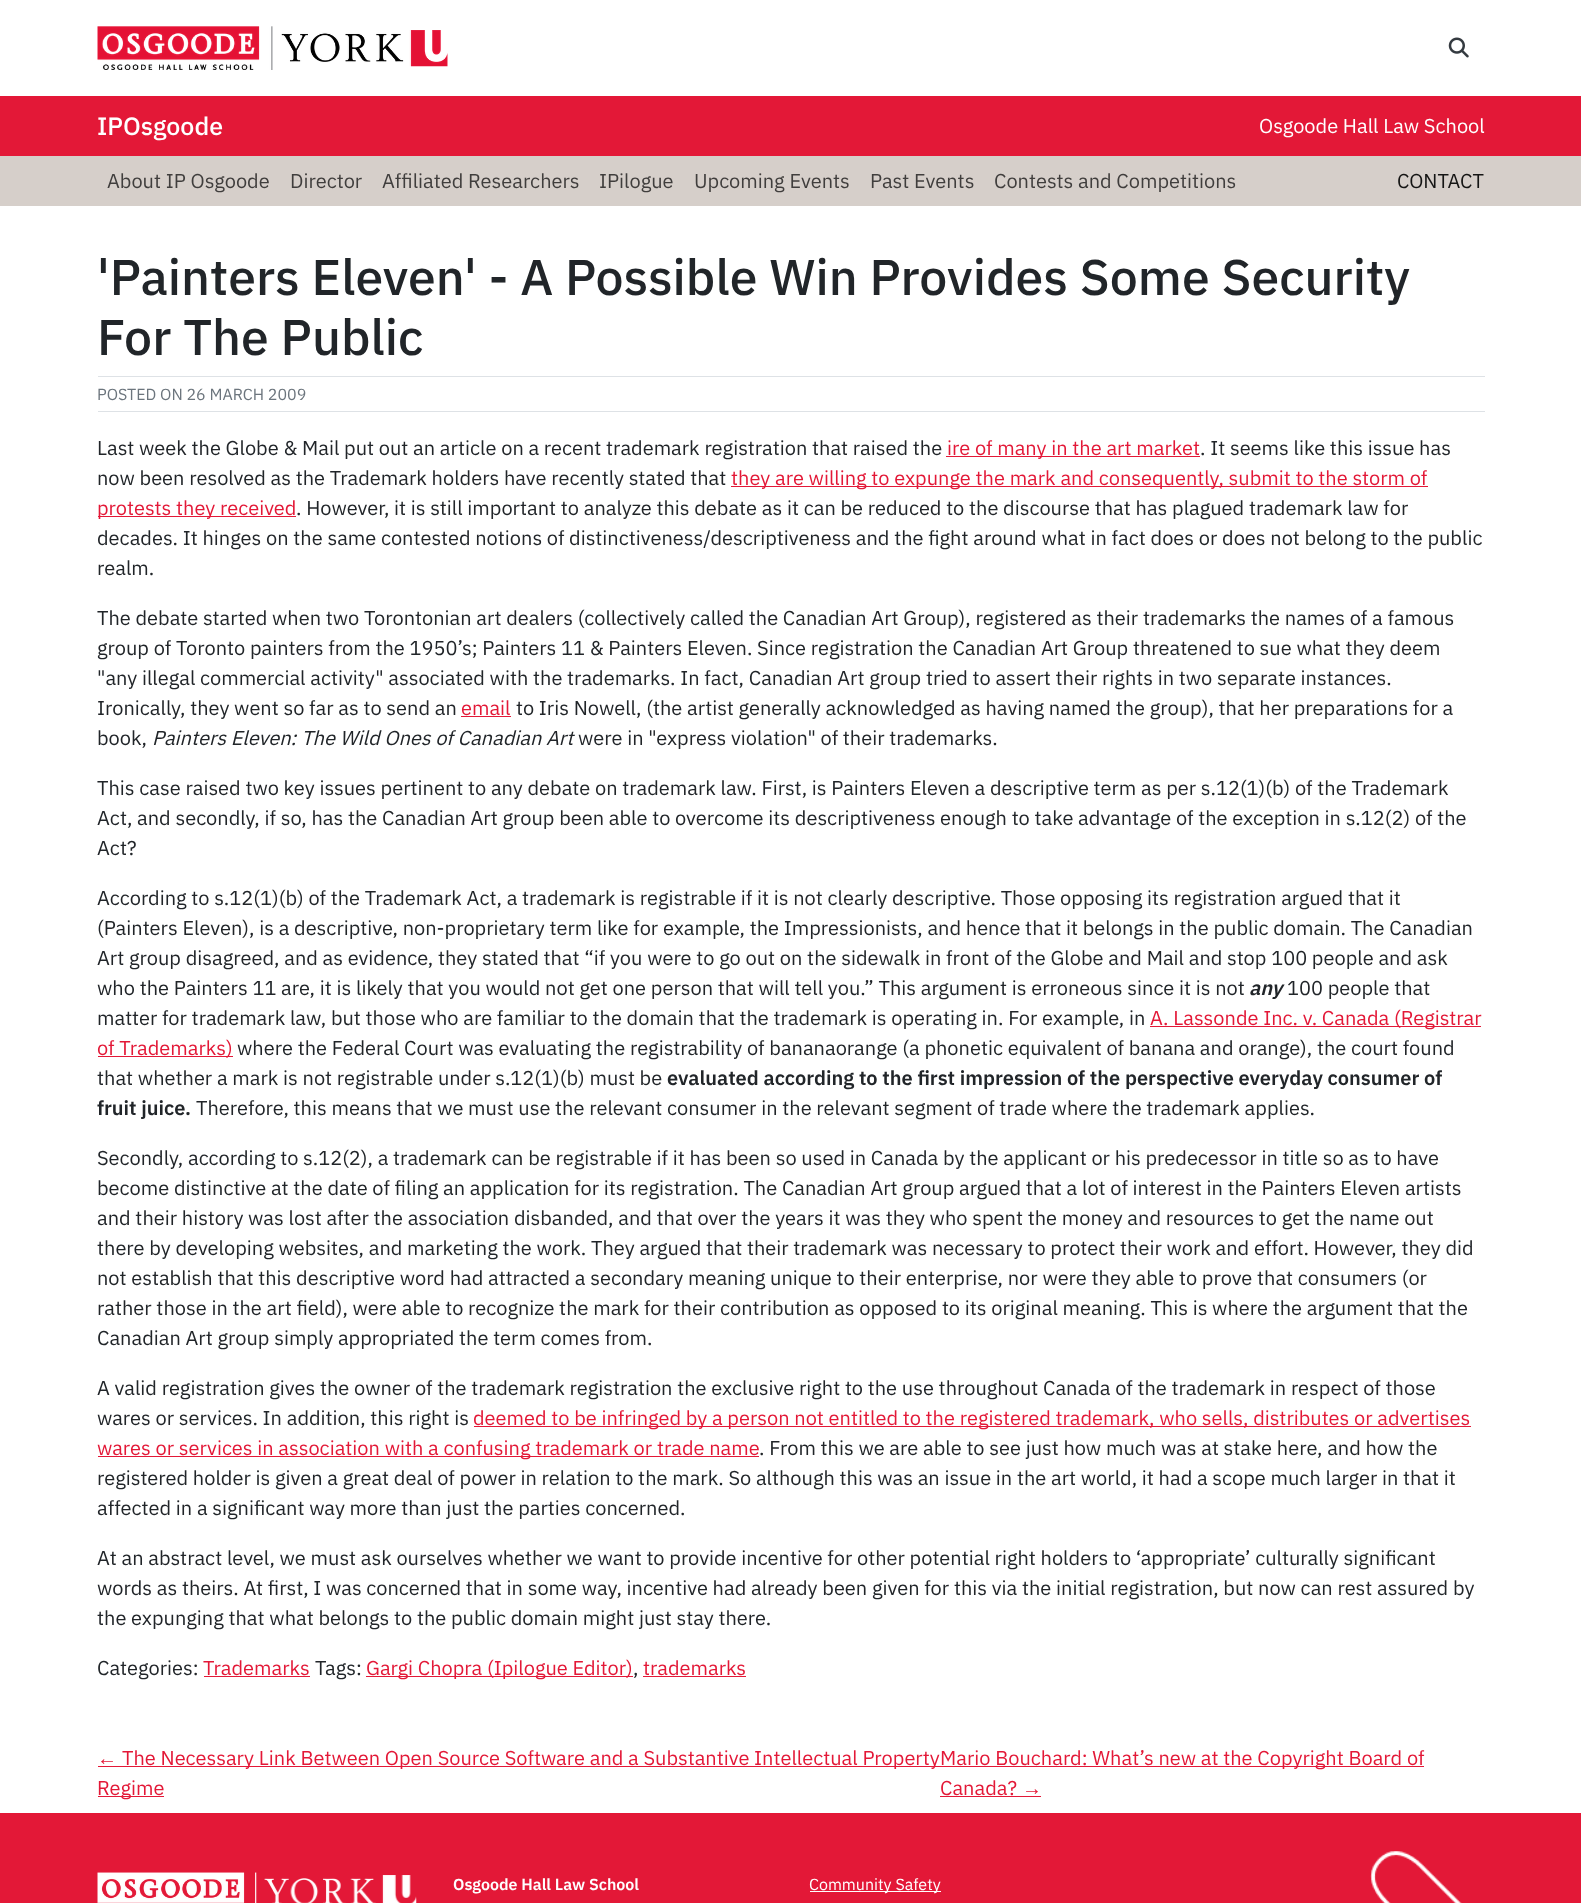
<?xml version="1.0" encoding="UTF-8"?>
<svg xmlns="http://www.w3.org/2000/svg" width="1581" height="1903">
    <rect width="100%" height="100%" fill="#FFFFFF"/>
    <image x="97" y="26" width="176" height="44" href="img_01.png"/>
    <image x="281" y="30" width="167" height="37" href="img_02.png"/>
    <image x="1448" y="37" width="21" height="21" href="img_03.png"/>
    <rect x="0" y="96" width="1581" height="60" fill="#E31837"/>
    <text x="97" y="135" font-family="IBM Plex Sans" font-size="25" font-weight="500" fill="#FFFFFF">IPOsgoode</text>
    <text x="1259" y="133" font-family="IBM Plex Sans" font-size="20" fill="#FFFFFF">Osgoode Hall Law School</text>
    <rect x="0" y="156" width="1581" height="50" fill="#D6CFCA"/>
    <text x="107" y="188" font-family="IBM Plex Sans" font-size="20" fill="#403E3D">About IP Osgoode</text>
    <text x="290" y="188" font-family="IBM Plex Sans" font-size="20" fill="#403E3D">Director</text>
    <text x="382" y="188" font-family="IBM Plex Sans" font-size="20" fill="#403E3D">Affiliated Researchers</text>
    <text x="599" y="188" font-family="IBM Plex Sans" font-size="20" fill="#403E3D">IPilogue</text>
    <text x="694" y="188" font-family="IBM Plex Sans" font-size="20" fill="#403E3D">Upcoming Events</text>
    <text x="870" y="188" font-family="IBM Plex Sans" font-size="20" fill="#403E3D">Past Events</text>
    <text x="994" y="188" font-family="IBM Plex Sans" font-size="20" fill="#403E3D">Contests and Competitions</text>
    <text x="1397" y="188" font-family="IBM Plex Sans" font-size="20" fill="#151514">CONTACT</text>
    <text font-family="IBM Plex Sans" font-size="50" font-weight="500" fill="#212529">
        <tspan x="97" y="295">'Painters Eleven' - A Possible Win Provides Some Security</tspan>
        <tspan x="97" y="355">For The Public</tspan>
    </text>
    <rect x="98" y="376" width="1387" height="1" fill="#DEE2E6"/>
    <rect x="98" y="411" width="1387" height="1" fill="#DEE2E6"/>
    <text x="97" y="400" font-family="IBM Plex Sans" font-size="16" fill="#6C757D">POSTED ON 26 MARCH 2009</text>
    <text x="97" y="455" font-family="IBM Plex Sans" font-size="20" fill="#212529">Last week the Globe &amp; Mail put out an article on a recent trademark registration that raised the</text>
    <rect x="946" y="456" width="254" height="1" fill="#E31837"/>
    <text x="947" y="455" font-family="IBM Plex Sans" font-size="20" fill="#E31837">ire of many in the art market</text>
    <text x="1200" y="455" font-family="IBM Plex Sans" font-size="20" fill="#212529">. It seems like this issue has</text>
    <text x="97" y="485" font-family="IBM Plex Sans" font-size="20" fill="#212529">now been resolved as the Trademark holders have recently stated that</text>
    <rect x="731" y="486" width="697" height="1" fill="#E31837"/>
    <text x="731" y="485" font-family="IBM Plex Sans" font-size="20" fill="#E31837">they are willing to expunge the mark and consequently, submit to the storm of</text>
    <rect x="98" y="516" width="198" height="1" fill="#E31837"/>
    <text x="97" y="515" font-family="IBM Plex Sans" font-size="20" fill="#E31837">protests they received</text>
    <text x="296" y="515" font-family="IBM Plex Sans" font-size="20" fill="#212529">. However, it is still important to analyze this debate as it can be reduced to the discourse that has plagued trademark law for</text>
    <text font-family="IBM Plex Sans" font-size="20" fill="#212529">
        <tspan x="97" y="545">decades. It hinges on the same contested notions of distinctiveness/descriptiveness and the fight around what in fact does or does not belong to the public</tspan>
        <tspan x="97" y="575">realm.</tspan>
    </text>
    <text font-family="IBM Plex Sans" font-size="20" fill="#212529">
        <tspan x="97" y="625">The debate started when two Torontonian art dealers (collectively called the Canadian Art Group), registered as their trademarks the names of a famous</tspan>
        <tspan x="97" y="655">group of Toronto painters from the 1950’s; Painters 11 &amp; Painters Eleven. Since registration the Canadian Art Group threatened to sue what they deem</tspan>
        <tspan x="97" y="685">"any illegal commercial activity" associated with the trademarks. In fact, Canadian Art group tried to assert their rights in two separate instances.</tspan>
        <tspan x="97" y="715">Ironically, they went so far as to send an</tspan>
    </text>
    <text x="461" y="715" font-family="IBM Plex Sans" font-size="20" fill="#E31837">email</text>
    <rect x="461" y="716" width="50" height="1" fill="#E31837"/>
    <text x="516" y="715" font-family="IBM Plex Sans" font-size="20" fill="#212529">to Iris Nowell, (the artist generally acknowledged as having named the group), that her preparations for a</text>
    <text x="97" y="745" font-family="IBM Plex Sans" font-size="20" fill="#212529">book,</text>
    <text x="152" y="745" font-family="IBM Plex Sans" font-size="20" font-style="italic" fill="#212529">Painters Eleven: The Wild Ones of Canadian Art</text>
    <text x="578" y="745" font-family="IBM Plex Sans" font-size="20" fill="#212529">were in "express violation" of their trademarks.</text>
    <text font-family="IBM Plex Sans" font-size="20" fill="#212529">
        <tspan x="97" y="795">This case raised two key issues pertinent to any debate on trademark law. First, is Painters Eleven a descriptive term as per s.12(1)(b) of the Trademark</tspan>
        <tspan x="97" y="825">Act, and secondly, if so, has the Canadian Art group been able to overcome its descriptiveness enough to take advantage of the exception in s.12(2) of the</tspan>
        <tspan x="97" y="855">Act?</tspan>
    </text>
    <text font-family="IBM Plex Sans" font-size="20" fill="#212529">
        <tspan x="97" y="905">According to s.12(1)(b) of the Trademark Act, a trademark is registrable if it is not clearly descriptive. Those opposing its registration argued that it</tspan>
        <tspan x="97" y="935">(Painters Eleven), is a descriptive, non-proprietary term like for example, the Impressionists, and hence that it belongs in the public domain. The Canadian</tspan>
        <tspan x="97" y="965">Art group disagreed, and as evidence, they stated that “if you were to go out on the sidewalk in front of the Globe and Mail and stop 100 people and ask</tspan>
        <tspan x="97" y="995">who the Painters 11 are, it is likely that you would not get one person that will tell you.” This argument is erroneous since it is not</tspan>
    </text>
    <text x="1249" y="995" font-family="IBM Plex Sans" font-size="20" font-weight="600" font-style="italic" fill="#212529">any</text>
    <text x="1287" y="995" font-family="IBM Plex Sans" font-size="20" fill="#212529">100 people that</text>
    <text x="97" y="1025" font-family="IBM Plex Sans" font-size="20" fill="#212529">matter for trademark law, but those who are familiar to the domain that the trademark is operating in. For example, in</text>
    <rect x="1150" y="1026" width="331" height="1" fill="#E31837"/>
    <text x="1150" y="1025" font-family="IBM Plex Sans" font-size="20" fill="#E31837">A. Lassonde Inc. v. Canada (Registrar</text>
    <rect x="98" y="1056" width="135" height="1" fill="#E31837"/>
    <text x="97" y="1055" font-family="IBM Plex Sans" font-size="20" fill="#E31837">of Trademarks)</text>
    <text x="237" y="1055" font-family="IBM Plex Sans" font-size="20" fill="#212529">where the Federal Court was evaluating the registrability of bananaorange (a phonetic equivalent of banana and orange), the court found</text>
    <text x="97" y="1085" font-family="IBM Plex Sans" font-size="20" fill="#212529">that whether a mark is not registrable under s.12(1)(b) must be</text>
    <text x="667" y="1085" font-family="IBM Plex Sans" font-size="20" font-weight="600" fill="#212529">evaluated according to the first impression of the perspective everyday consumer of</text>
    <text x="97" y="1115" font-family="IBM Plex Sans" font-size="20" font-weight="600" fill="#212529">fruit juice.</text>
    <text x="196" y="1115" font-family="IBM Plex Sans" font-size="20" fill="#212529">Therefore, this means that we must use the relevant consumer in the relevant segment of trade where the trademark applies.</text>
    <text font-family="IBM Plex Sans" font-size="20" fill="#212529">
        <tspan x="97" y="1165">Secondly, according to s.12(2), a trademark can be registrable if it has been so used in Canada by the applicant or his predecessor in title so as to have</tspan>
        <tspan x="97" y="1195">become distinctive at the date of filing an application for its registration. The Canadian Art group argued that a lot of interest in the Painters Eleven artists</tspan>
        <tspan x="97" y="1225">and their history was lost after the association disbanded, and that over the years it was they who spent the money and resources to get the name out</tspan>
        <tspan x="97" y="1255">there by developing websites, and marketing the work. They argued that their trademark was necessary to protect their work and effort. However, they did</tspan>
        <tspan x="97" y="1285">not establish that this descriptive word had attracted a secondary meaning unique to their enterprise, nor were they able to prove that consumers (or</tspan>
        <tspan x="97" y="1315">rather those in the art field), were able to recognize the mark for their contribution as opposed to its original meaning. This is where the argument that the</tspan>
        <tspan x="97" y="1345">Canadian Art group simply appropriated the term comes from.</tspan>
    </text>
    <text font-family="IBM Plex Sans" font-size="20" fill="#212529">
        <tspan x="97" y="1395">A valid registration gives the owner of the trademark registration the exclusive right to the use throughout Canada of the trademark in respect of those</tspan>
        <tspan x="97" y="1425">wares or services. In addition, this right is</tspan>
    </text>
    <rect x="474" y="1426" width="997" height="1" fill="#E31837"/>
    <text x="473" y="1425" font-family="IBM Plex Sans" font-size="20" fill="#E31837">deemed to be infringed by a person not entitled to the registered trademark, who sells, distributes or advertises</text>
    <rect x="98" y="1456" width="661" height="1" fill="#E31837"/>
    <text x="97" y="1455" font-family="IBM Plex Sans" font-size="20" fill="#E31837">wares or services in association with a confusing trademark or</text>
    <text x="657" y="1455" font-family="IBM Plex Sans" font-size="20" fill="#E31837">trade name</text>
    <text x="759" y="1455" font-family="IBM Plex Sans" font-size="20" fill="#212529">. From this we are able to see just how much was at stake here, and how the</text>
    <text font-family="IBM Plex Sans" font-size="20" fill="#212529">
        <tspan x="97" y="1485">registered holder is given a great deal of power in relation to the mark. So although this was an issue in the art world, it had a scope much larger in that it</tspan>
        <tspan x="97" y="1515">affected in a significant way more than just the parties concerned.</tspan>
    </text>
    <text font-family="IBM Plex Sans" font-size="20" fill="#212529">
        <tspan x="97" y="1565">At an abstract level, we must ask ourselves whether we want to provide incentive for other potential right holders to ‘appropriate’ culturally significant</tspan>
        <tspan x="97" y="1595">words as theirs. At first, I was concerned that in some way, incentive had already been given for this via the initial registration, but now can rest assured by</tspan>
        <tspan x="97" y="1625">the expunging that what belongs to the public domain might just stay there.</tspan>
    </text>
    <text x="97" y="1675" font-family="IBM Plex Sans" font-size="20" fill="#212529">Categories:</text>
    <text x="203" y="1675" font-family="IBM Plex Sans" font-size="20" fill="#E31837">Trademarks</text>
    <rect x="204" y="1676" width="106" height="1" fill="#E31837"/>
    <text x="315" y="1675" font-family="IBM Plex Sans" font-size="20" fill="#212529">Tags:</text>
    <rect x="366" y="1676" width="267" height="1" fill="#E31837"/>
    <text x="366" y="1675" font-family="IBM Plex Sans" font-size="20" fill="#E31837">Gargi Chopra (Ipilogue Editor)</text>
    <text x="633" y="1675" font-family="IBM Plex Sans" font-size="20" fill="#212529">,</text>
    <rect x="643" y="1676" width="103" height="1" fill="#E31837"/>
    <text x="643" y="1675" font-family="IBM Plex Sans" font-size="20" fill="#E31837">trademarks</text>
    <text x="97" y="1765" font-family="Liberation Sans" font-size="20" fill="#E31837">←</text>
    <rect x="98" y="1766" width="1326" height="1" fill="#E31837"/>
    <text x="122" y="1765" font-family="IBM Plex Sans" font-size="20" fill="#E31837">The Necessary Link Between Open Source Software and a Substantive Intellectual Property</text>
    <rect x="98" y="1796" width="66" height="1" fill="#E31837"/>
    <text x="97" y="1795" font-family="IBM Plex Sans" font-size="20" fill="#E31837">Regime</text>
    <text font-family="IBM Plex Sans" font-size="20" fill="#E31837">
        <tspan x="940" y="1765">Mario Bouchard: What’s new at the Copyright Board of</tspan>
        <tspan x="940" y="1795">Canada?</tspan>
    </text>
    <text x="1022" y="1795" font-family="Liberation Sans" font-size="20" fill="#E31837">→</text>
    <rect x="940" y="1796" width="101" height="1" fill="#E31837"/>
    <rect x="0" y="1813" width="1581" height="90" fill="#E31837"/>
    <image x="1370" y="1851" width="92" height="52" href="img_04.png"/>
    <image x="97" y="1872" width="160" height="31" href="img_05.png"/>
    <image x="256" y="1875" width="161" height="28" href="img_06.png"/>
    <text x="453" y="1890" font-family="IBM Plex Sans" font-size="16" font-weight="600" fill="#FFFFFF">Osgoode Hall Law School</text>
    <rect x="810" y="1891" width="131" height="1" fill="#FFFFFF"/>
    <text x="809" y="1890" font-family="IBM Plex Sans" font-size="16" fill="#FFFFFF">Community Safety</text>
</svg>
